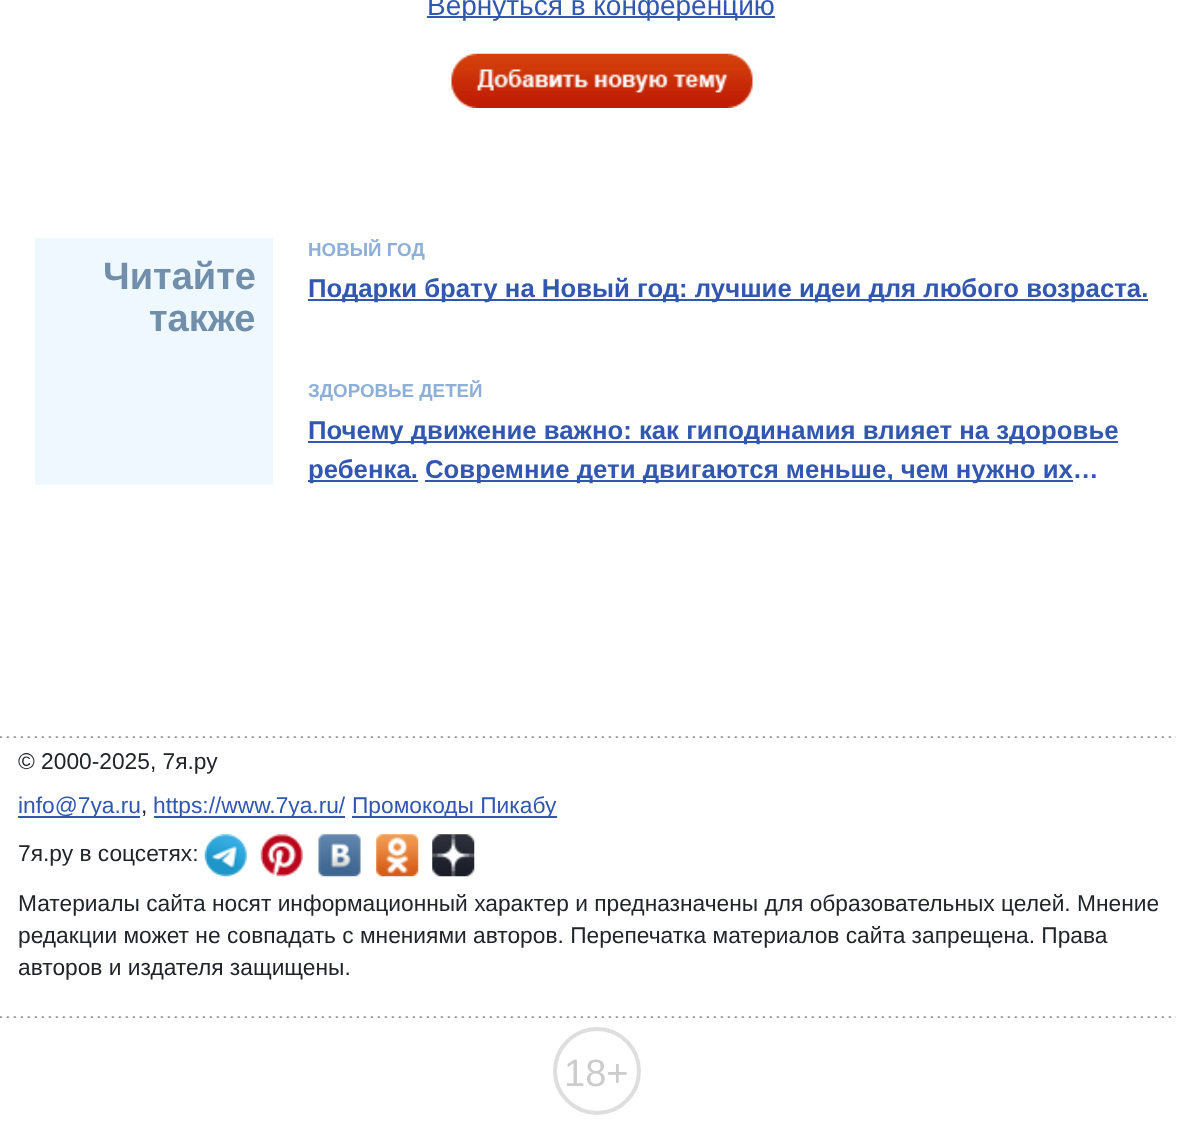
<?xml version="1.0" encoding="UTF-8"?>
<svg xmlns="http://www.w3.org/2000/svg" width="1193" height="1132">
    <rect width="100%" height="100%" fill="#FFFFFF"/>
    <rect x="427" y="16" width="348" height="2" fill="#3157B0"/>
    <text x="427" y="15" font-family="Liberation Sans" font-size="28" fill="#3157B0">Вернуться в конференцию</text>
    <image x="451" y="53" width="302" height="55" href="img_01.png"/>
    <rect x="35" y="238" width="238" height="247" fill="#F0F8FF"/>
    <text x="103" y="289" font-family="Liberation Sans" font-size="38" font-weight="700" fill="#718FAB">Читайте</text>
    <text x="149" y="331" font-family="Liberation Sans" font-size="38" font-weight="700" fill="#718FAB">также</text>
    <text x="308" y="256" font-family="Liberation Sans" font-size="18.75" font-weight="700" fill="#8DAFD8">НОВЫЙ ГОД</text>
    <rect x="308" y="299" width="833" height="2" fill="#3157B0"/>
    <text x="308" y="297" font-family="Liberation Sans" font-size="25.75" font-weight="700" fill="#3157B0">Подарки брату на Новый год: лучшие идеи для любого возраста.</text>
    <rect x="1141" y="299" width="7" height="2" fill="#3157B0"/>
    <text x="308" y="397" font-family="Liberation Sans" font-size="18.75" font-weight="700" fill="#8DAFD8">ЗДОРОВЬЕ ДЕТЕЙ</text>
    <rect x="308" y="441" width="810" height="2" fill="#3157B0"/>
    <text x="308" y="439" font-family="Liberation Sans" font-size="25.75" font-weight="700" fill="#3157B0">Почему движение важно: как гиподинамия влияет на здоровье</text>
    <rect x="308" y="480" width="110" height="2" fill="#3157B0"/>
    <text x="308" y="478" font-family="Liberation Sans" font-size="25.75" font-weight="700" fill="#3157B0">ребенка.</text>
    <rect x="425" y="480" width="648" height="2" fill="#3157B0"/>
    <text x="425" y="478" font-family="Liberation Sans" font-size="25.75" font-weight="700" fill="#3157B0">Совремние дети двигаются меньше, чем нужно их…</text>
    <image x="0" y="736" width="1176" height="2" href="img_02.png"/>
    <text x="18" y="769" font-family="Liberation Sans" font-size="22.75" fill="#212529">© 2000-2025, 7я.ру</text>
    <rect x="18" y="816" width="122" height="2" fill="#3157B0"/>
    <text x="18" y="813" font-family="Liberation Sans" font-size="22.75" fill="#3157B0">info@7ya.ru</text>
    <text x="141" y="813" font-family="Liberation Sans" font-size="22.75" fill="#212529">,</text>
    <rect x="154" y="816" width="191" height="2" fill="#3157B0"/>
    <text x="153" y="813" font-family="Liberation Sans" font-size="22.75" fill="#3157B0">https://www.7ya.ru/</text>
    <rect x="352" y="816" width="205" height="2" fill="#3157B0"/>
    <text x="352" y="813" font-family="Liberation Sans" font-size="22.75" fill="#3157B0">Промокоды Пикабу</text>
    <text x="18" y="861" font-family="Liberation Sans" font-size="22.75" fill="#212529">7я.ру в соцсетях:</text>
    <image x="204" y="834" width="43" height="43" href="img_03.png"/>
    <image x="260" y="834" width="43" height="43" href="img_04.png"/>
    <image x="318" y="834" width="43" height="43" href="img_05.png"/>
    <image x="376" y="834" width="43" height="43" href="img_06.png"/>
    <image x="432" y="834" width="43" height="43" href="img_07.png"/>
    <text font-family="Liberation Sans" font-size="22.75" fill="#212529">
        <tspan x="18" y="911">Материалы сайта носят информационный характер и предназначены для образовательных целей. Мнение</tspan>
        <tspan x="18" y="943">редакции может не совпадать с мнениями авторов. Перепечатка материалов сайта запрещена. Права</tspan>
        <tspan x="18" y="975">авторов и издателя защищены.</tspan>
    </text>
    <image x="0" y="1016" width="1176" height="2" href="img_02.png"/>
    <circle cx="597" cy="1071" r="42" fill="none" stroke="#DEDEDE" stroke-width="4"/>
    <text x="564" y="1086" font-family="Liberation Sans" font-size="38" fill="#CCCCCC">18+</text>
</svg>
